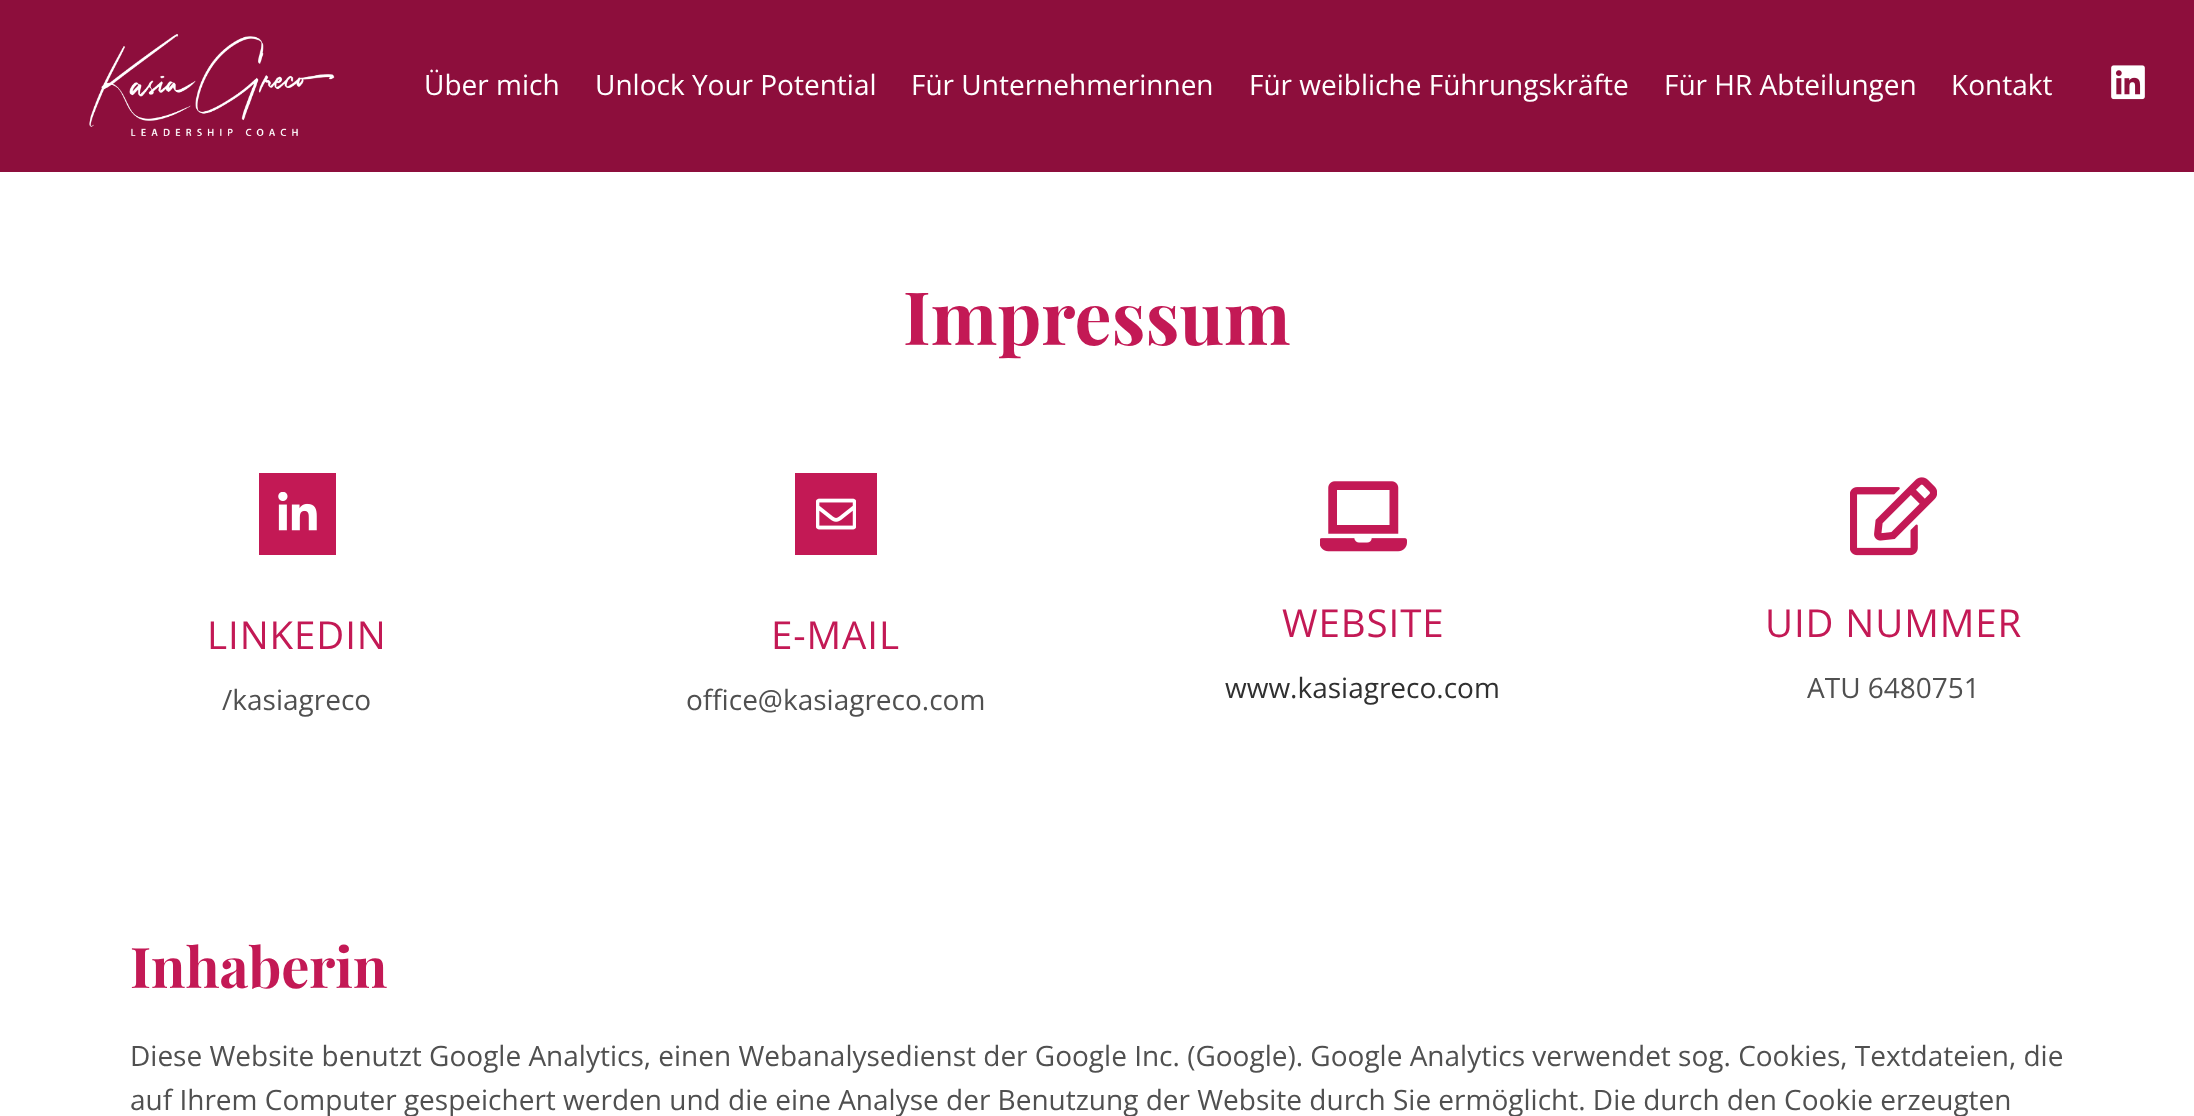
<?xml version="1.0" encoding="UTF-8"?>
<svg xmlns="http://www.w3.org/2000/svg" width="2194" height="1116">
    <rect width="100%" height="100%" fill="#FFFFFF"/>
    <rect x="0" y="0" width="2194" height="172" fill="#8D0E3C"/>
    <image x="89" y="34" width="246" height="102" href="img_01.png"/>
    <text x="424" y="95" font-family="Open Sans" font-size="28" fill="#FFFFFF">Über mich</text>
    <text x="595" y="95" font-family="Open Sans" font-size="28" fill="#FFFFFF">Unlock Your Potential</text>
    <text x="911" y="95" font-family="Open Sans" font-size="28" fill="#FFFFFF">Für Unternehmerinnen</text>
    <text x="1249" y="95" font-family="Open Sans" font-size="28" fill="#FFFFFF">Für weibliche Führungskräfte</text>
    <text x="1664" y="95" font-family="Open Sans" font-size="28" fill="#FFFFFF">Für HR Abteilungen</text>
    <text x="1951" y="95" font-family="Open Sans" font-size="28" fill="#FFFFFF">Kontakt</text>
    <image x="2111" y="65" width="34" height="35" href="img_02.png"/>
    <text x="903" y="345" font-family="Playfair Display" font-size="73.5" font-weight="700" fill="#C31955">Impressum</text>
    <rect x="259" y="473" width="77" height="82" fill="#C31955"/>
    <image x="278" y="492" width="39" height="39" href="img_03.png"/>
    <text x="207" y="649" font-family="Open Sans" font-size="38.5" letter-spacing="0.9" fill="#C31955">LINKEDIN</text>
    <text x="222" y="710" font-family="Open Sans" font-size="28" fill="#505050">/kasiagreco</text>
    <rect x="795" y="473" width="82" height="82" fill="#C31955"/>
    <image x="816" y="498" width="40" height="32" href="img_04.png"/>
    <text x="771" y="649" font-family="Open Sans" font-size="38.5" letter-spacing="0.9" fill="#C31955">E-MAIL</text>
    <text x="686" y="710" font-family="Open Sans" font-size="28" fill="#505050">office@kasiagreco.com</text>
    <image x="1320" y="481" width="87" height="71" href="img_05.png"/>
    <text x="1282" y="637" font-family="Open Sans" font-size="38.5" letter-spacing="0.9" fill="#C31955">WEBSITE</text>
    <text x="1225" y="698" font-family="Open Sans" font-size="28" fill="#303030">www.kasiagreco.com</text>
    <image x="1850" y="477" width="87" height="79" href="img_06.png"/>
    <text x="1765" y="637" font-family="Open Sans" font-size="38.5" letter-spacing="0.9" fill="#C31955">UID NUMMER</text>
    <text x="1807" y="698" font-family="Open Sans" font-size="28" fill="#505050">ATU 6480751</text>
    <text x="130" y="988" font-family="Playfair Display" font-size="56" font-weight="700" fill="#C31955">Inhaberin</text>
    <text font-family="Open Sans" font-size="28" fill="#505050">
        <tspan x="130" y="1066">Diese Website benutzt Google Analytics, einen Webanalysedienst der Google Inc. (Google). Google Analytics verwendet sog. Cookies, Textdateien, die</tspan>
        <tspan x="130" y="1110">auf Ihrem Computer gespeichert werden und die eine Analyse der Benutzung der Website durch Sie ermöglicht. Die durch den Cookie erzeugten</tspan>
    </text>
</svg>
